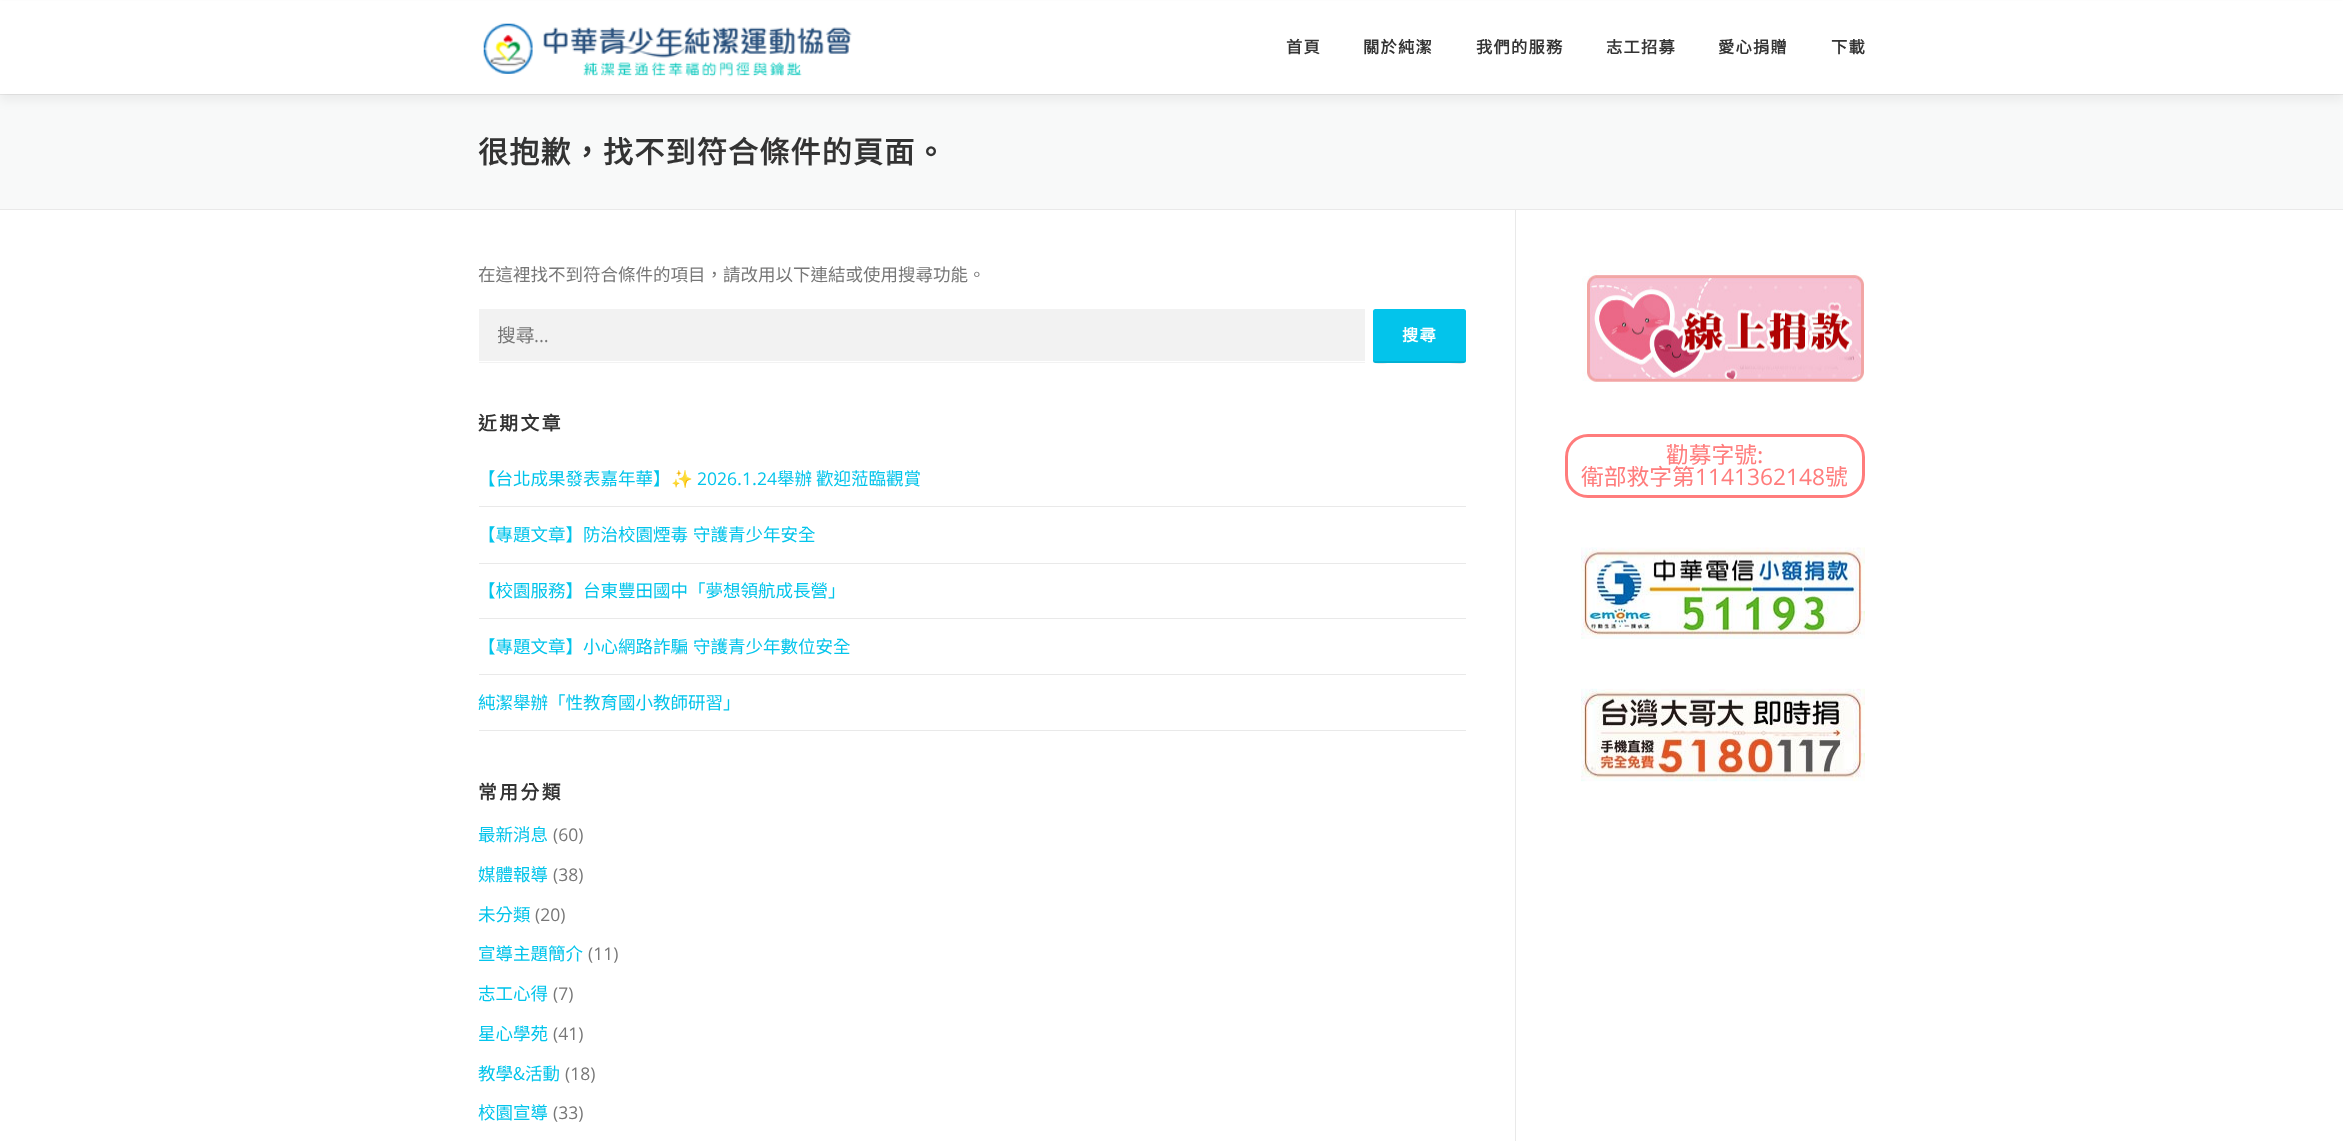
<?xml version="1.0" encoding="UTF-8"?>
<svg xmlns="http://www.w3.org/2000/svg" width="2343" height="1141">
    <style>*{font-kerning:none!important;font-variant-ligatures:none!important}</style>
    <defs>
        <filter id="blur1" x="-50%" y="-200%" width="200%" height="500%"><feGaussianBlur stdDeviation="6"/></filter>
        <clipPath id="clip1"><rect x="498" y="321" width="843" height="27"/></clipPath>
    </defs>
    <rect width="100%" height="100%" fill="#FFFFFF"/>
    <rect x="0" y="95" width="2343" height="114" fill="#F8F9F9"/>
    <rect x="0" y="94" width="2343" height="1" fill="#E9E9E9"/>
    <rect x="0" y="6" width="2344" height="94" fill="#323232" fill-opacity="0.06" filter="url(#blur1)"/>
    <rect x="0" y="1" width="2343" height="93" fill="#FFFFFF"/>
    <image x="483" y="23" width="369" height="54" href="img_01.png"/>
    <text x="1286" y="53" font-family="Noto Sans CJK TC" font-size="16.25" font-weight="700" letter-spacing="1.25" fill="#333333">首頁</text>
    <text x="1363" y="53" font-family="Noto Sans CJK TC" font-size="16.25" font-weight="700" letter-spacing="1.25" fill="#333333">關於純潔</text>
    <text x="1476" y="53" font-family="Noto Sans CJK TC" font-size="16.25" font-weight="700" letter-spacing="1.25" fill="#333333">我們的服務</text>
    <text x="1606" y="53" font-family="Noto Sans CJK TC" font-size="16.25" font-weight="700" letter-spacing="1.25" fill="#333333">志工招募</text>
    <text x="1718" y="53" font-family="Noto Sans CJK TC" font-size="16.25" font-weight="700" letter-spacing="1.25" fill="#333333">愛心捐贈</text>
    <text x="1831" y="53" font-family="Noto Sans CJK TC" font-size="16.25" font-weight="700" letter-spacing="1.25" fill="#333333">下載</text>
    <rect x="0" y="209" width="2343" height="1" fill="#E9E9E9"/>
    <text x="478" y="163" font-family="Noto Sans CJK TC" font-size="30" font-weight="700" letter-spacing="1.25" fill="#333333">很抱歉，找不到符合條件的頁面。</text>
    <rect x="1515" y="210" width="1" height="931" fill="#E9E9E9"/>
    <text x="478" y="281" font-family="Noto Sans CJK TC" font-size="17.5" fill="#777777">在這裡找不到符合條件的項目，請改用以下連結或使用搜尋功能。</text>
    <rect x="479" y="309" width="886" height="54" fill="#F2F2F2"/>
    <rect x="479" y="361" width="886" height="1" fill="#FFFFFF"/>
    <g clip-path="url(#clip1)">
        <text x="497" y="342" font-family="Noto Sans CJK TC" font-size="18.75" fill="#777777">搜尋</text>
    </g>
    <text x="534" y="342" font-family="Open Sans" font-size="18.75" fill="#777777">...</text>
    <rect x="1373" y="309" width="93" height="54" rx="2.5" fill="#03C4EB"/>
    <path d="M 1373 360 C 1373 366 1385 363 1390 363 H 1449 C 1454 363 1466 367 1466 359 C 1466 360 1465 361 1464 361 H 1375 Z" fill="#000000" fill-opacity="0.1"/>
    <text x="1402" y="341" font-family="Noto Sans CJK TC" font-size="16.25" font-weight="700" letter-spacing="1.25" fill="#FFFFFF">搜尋</text>
    <text x="478" y="430" font-family="Noto Sans CJK TC" font-size="18.75" font-weight="700" letter-spacing="2.5" fill="#333333">近期文章</text>
    <rect x="479" y="506" width="987" height="1" fill="#E9E9E9"/>
    <text x="478" y="485" font-family="Noto Sans CJK TC" font-size="17.5" fill="#03C4EB">【台北成果發表嘉年華】</text>
    <text x="671" y="485" font-family="Noto Color Emoji" font-size="17.5" fill="#03C4EB">✨</text>
    <text x="697" y="485" font-family="Open Sans" font-size="17.5" fill="#03C4EB">2026</text>
    <text x="737" y="485" font-family="Noto Sans CJK TC" font-size="17.5" fill="#03C4EB">.</text>
    <text x="742" y="485" font-family="Open Sans" font-size="17.5" fill="#03C4EB">1</text>
    <text x="752" y="485" font-family="Noto Sans CJK TC" font-size="17.5" fill="#03C4EB">.</text>
    <text x="757" y="485" font-family="Open Sans" font-size="17.5" fill="#03C4EB">24</text>
    <text x="777" y="485" font-family="Noto Sans CJK TC" font-size="17.5" fill="#03C4EB">舉辦 歡迎蒞臨觀賞</text>
    <rect x="479" y="563" width="987" height="1" fill="#E9E9E9"/>
    <text x="478" y="541" word-spacing="1" font-family="Noto Sans CJK TC" font-size="17.5" fill="#03C4EB">【專題文章】防治校園煙毒 守護青少年安全</text>
    <rect x="479" y="618" width="987" height="1" fill="#E9E9E9"/>
    <text x="478" y="597" font-family="Noto Sans CJK TC" font-size="17.5" fill="#03C4EB">【校園服務】台東豐田國中「夢想領航成長營」</text>
    <rect x="479" y="674" width="987" height="1" fill="#E9E9E9"/>
    <text x="478" y="653" word-spacing="1" font-family="Noto Sans CJK TC" font-size="17.5" fill="#03C4EB">【專題文章】小心網路詐騙 守護青少年數位安全</text>
    <rect x="479" y="730" width="987" height="1" fill="#E9E9E9"/>
    <text x="478" y="709" font-family="Noto Sans CJK TC" font-size="17.5" fill="#03C4EB">純潔舉辦「性教育國小教師研習」</text>
    <text x="478" y="799" font-family="Noto Sans CJK TC" font-size="18.75" font-weight="700" letter-spacing="2.5" fill="#333333">常用分類</text>
    <text x="478" y="841" font-family="Noto Sans CJK TC" font-size="17.5" fill="#03C4EB">最新消息</text>
    <text x="553" y="841" font-family="Open Sans" font-size="17.5" fill="#777777">(60)</text>
    <text x="478" y="881" font-family="Noto Sans CJK TC" font-size="17.5" fill="#03C4EB">媒體報導</text>
    <text x="553" y="881" font-family="Open Sans" font-size="17.5" fill="#777777">(38)</text>
    <text x="478" y="921" font-family="Noto Sans CJK TC" font-size="17.5" fill="#03C4EB">未分類</text>
    <text x="535" y="921" font-family="Open Sans" font-size="17.5" fill="#777777">(20)</text>
    <text x="478" y="960" font-family="Noto Sans CJK TC" font-size="17.5" fill="#03C4EB">宣導主題簡介</text>
    <text x="588" y="960" font-family="Open Sans" font-size="17.5" fill="#777777">(11)</text>
    <text x="478" y="1000" font-family="Noto Sans CJK TC" font-size="17.5" fill="#03C4EB">志工心得</text>
    <text x="553" y="1000" font-family="Open Sans" font-size="17.5" fill="#777777">(7)</text>
    <text x="478" y="1040" font-family="Noto Sans CJK TC" font-size="17.5" fill="#03C4EB">星心學苑</text>
    <text x="553" y="1040" font-family="Open Sans" font-size="17.5" fill="#777777">(41)</text>
    <text x="478" y="1080" font-family="Noto Sans CJK TC" font-size="17.5" fill="#03C4EB">教學&amp;活動</text>
    <text x="565" y="1080" font-family="Open Sans" font-size="17.5" fill="#777777">(18)</text>
    <text x="478" y="1119" font-family="Noto Sans CJK TC" font-size="17.5" fill="#03C4EB">校園宣導</text>
    <text x="553" y="1119" font-family="Open Sans" font-size="17.5" fill="#777777">(33)</text>
    <image x="1582" y="270" width="282" height="113" href="img_02.png"/>
    <rect x="1566.5" y="435.5" width="297" height="61" rx="21.5" fill="none" stroke="#FF7C7C" stroke-width="3"/>
    <text x="1666" y="463" font-family="Noto Sans CJK TC" font-size="22.75" fill="#FF7C7C">勸募字號:</text>
    <text x="1581" y="485" font-family="Noto Sans CJK TC" font-size="22.75" fill="#FF7C7C">衛部救字第</text>
    <text x="1695" y="485" font-family="Open Sans" font-size="22.75" fill="#FF7C7C">1141362148</text>
    <text x="1825" y="485" font-family="Noto Sans CJK TC" font-size="22.75" fill="#FF7C7C">號</text>
    <image x="1581" y="547" width="284" height="92" href="img_03.png"/>
    <image x="1581" y="688" width="284" height="94" href="img_04.png"/>
</svg>
